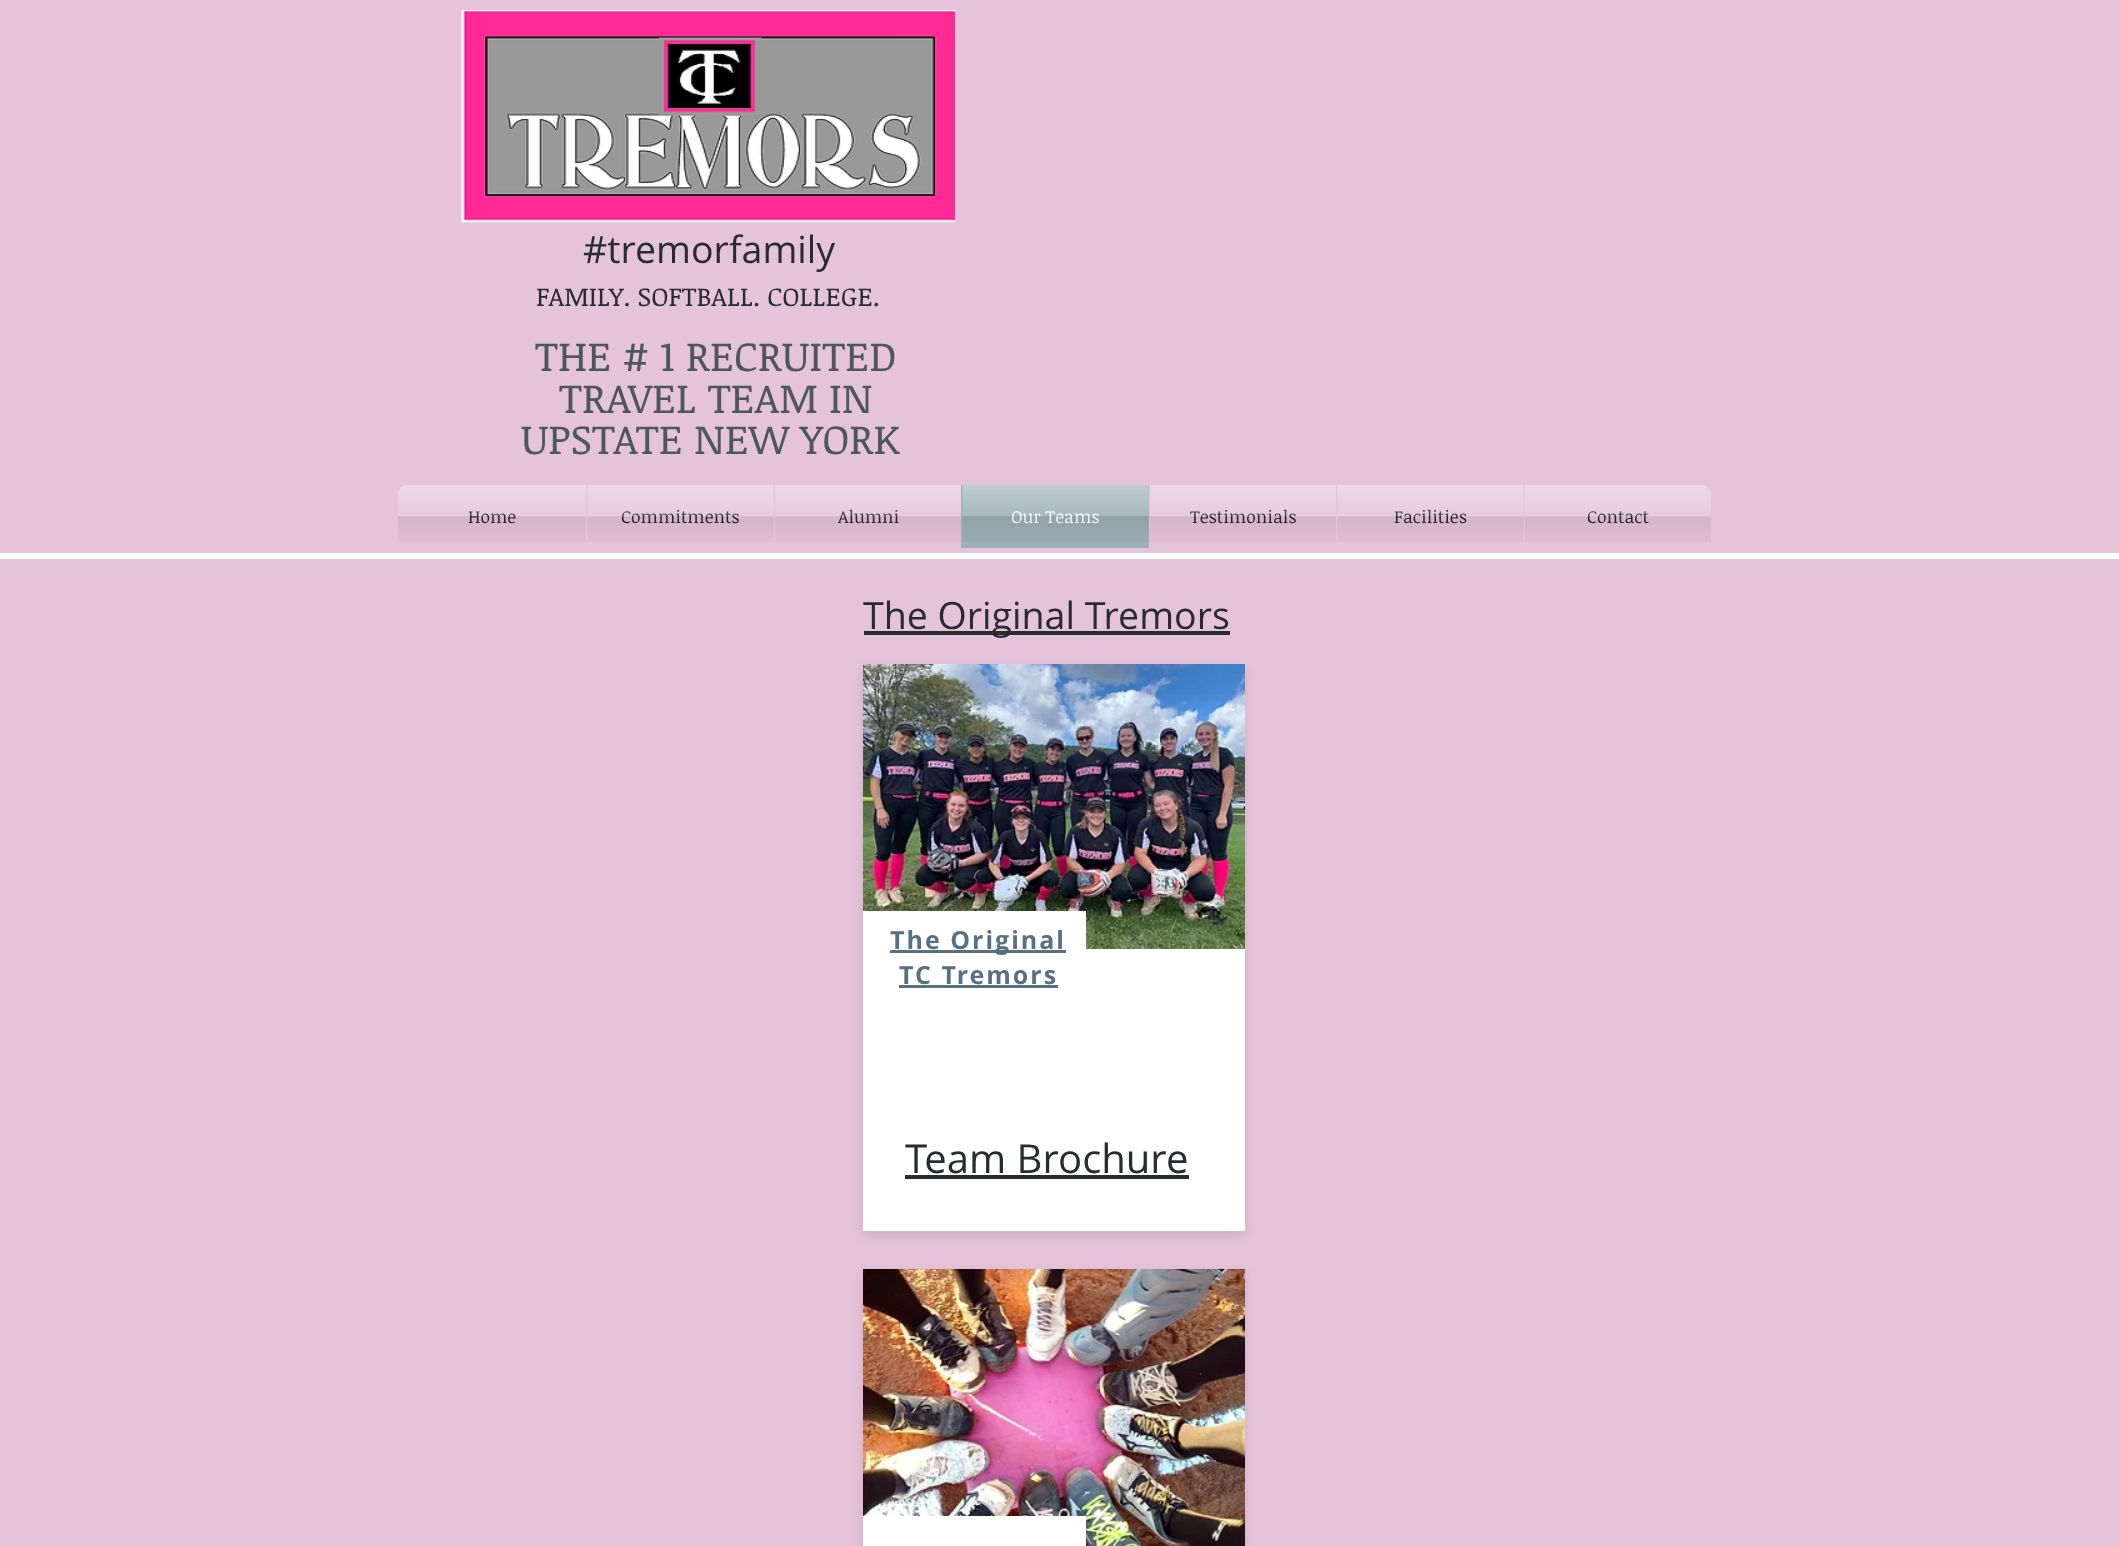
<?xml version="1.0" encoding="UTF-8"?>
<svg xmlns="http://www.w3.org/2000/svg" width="2119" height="1546">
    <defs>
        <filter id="blur1" x="-50%" y="-200%" width="200%" height="500%"><feGaussianBlur stdDeviation="6"/></filter>
    </defs>
    <rect width="100%" height="100%" fill="#E5C3DA"/>
    <image x="461" y="10" width="494" height="213" href="img_01.png"/>
    <text x="583" y="263" font-family="Open Sans" font-size="37.5" fill="#272C2D">#tremorfamily</text>
    <text x="536" y="306" font-family="Noticia Text" font-size="26.25" fill="#272C2D">FAMILY. SOFTBALL. COLLEGE.</text>
    <text x="535" y="371" font-family="Noticia Text" font-size="41.25" fill="#4E585B">THE # 1 RECRUITED</text>
    <text x="559" y="413" font-family="Noticia Text" font-size="41.25" fill="#4E585B">TRAVEL TEAM IN</text>
    <text x="521" y="454" font-family="Noticia Text" font-size="41.25" fill="#4E585B">UPSTATE NEW YORK</text>
    <image x="398" y="485" width="1313" height="10" href="img_02.png"/>
    <path d="M 408 485 H 586 V 548 H 398 V 495 C 398 489.5 402.5 485 408 485 Z" fill="#E5C3DA"/>
    <text x="468" y="523" font-family="Noticia Text" font-size="17.5" fill="#272C2D">Home</text>
    <image x="398" y="485" width="188" height="57" href="img_03.png"/>
    <rect x="586" y="485" width="375" height="10" fill="#E5C3DA"/>
    <text x="621" y="523" font-family="Noticia Text" font-size="17.5" fill="#272C2D">Commitments</text>
    <image x="587" y="485" width="187" height="57" href="img_04.png"/>
    <text x="838" y="523" font-family="Noticia Text" font-size="17.5" fill="#272C2D">Alumni</text>
    <image x="775" y="485" width="186" height="57" href="img_05.png"/>
    <rect x="961" y="485" width="188" height="63" fill="#9CB0B7"/>
    <text x="1011" y="523" font-family="Noticia Text" font-size="17.5" fill="#FFFFFF">Our Teams</text>
    <image x="962" y="485" width="187" height="57" href="img_06.png"/>
    <rect x="1149" y="485" width="375" height="10" fill="#E5C3DA"/>
    <text x="1190" y="523" font-family="Noticia Text" font-size="17.5" fill="#272C2D">Testimonials</text>
    <image x="1150" y="485" width="186" height="57" href="img_07.png"/>
    <text x="1394" y="523" font-family="Noticia Text" font-size="17.5" fill="#272C2D">Facilities</text>
    <image x="1337" y="485" width="187" height="57" href="img_08.png"/>
    <path d="M 1524 485 H 1701 C 1706.5 485 1711 489.5 1711 495 V 548 H 1524 Z" fill="#E5C3DA"/>
    <text x="1587" y="523" font-family="Noticia Text" font-size="17.5" fill="#272C2D">Contact</text>
    <image x="1525" y="485" width="186" height="57" href="img_09.png"/>
    <rect x="0" y="553" width="2119" height="6" fill="#FFFFFF"/>
    <rect x="864" y="631" width="366" height="4" fill="#272C2D"/>
    <text x="863" y="629" font-family="Open Sans" font-size="37.5" fill="#272C2D">The Original Tremors</text>
    <rect x="863" y="669" width="382" height="567" fill="#000000" fill-opacity="0.1" filter="url(#blur1)"/>
    <image x="863" y="664" width="382" height="285" href="img_10.png"/>
    <rect x="863" y="911" width="223" height="38" fill="#FFFFFF"/>
    <rect x="863" y="949" width="382" height="282" fill="#FFFFFF"/>
    <rect x="890" y="950" width="176" height="3" fill="#577083"/>
    <text x="890" y="949" font-family="Open Sans" font-size="25" font-weight="700" letter-spacing="2" fill="#577083">The Original</text>
    <text x="899" y="984" font-family="Open Sans" font-size="25" font-weight="700" letter-spacing="2" fill="#577083">TC Tremors</text>
    <rect x="899" y="985" width="159" height="3" fill="#577083"/>
    <rect x="863" y="1274" width="382" height="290" fill="#000000" fill-opacity="0.1" filter="url(#blur1)"/>
    <image x="863" y="1269" width="382" height="277" href="img_11.png"/>
    <rect x="863" y="1516" width="223" height="30" fill="#FFFFFF"/>
    <text x="905" y="1173" font-family="Open Sans" font-size="40" fill="#272C2D">Team Brochure</text>
    <rect x="905" y="1175" width="284" height="4" fill="#272C2D"/>
</svg>
